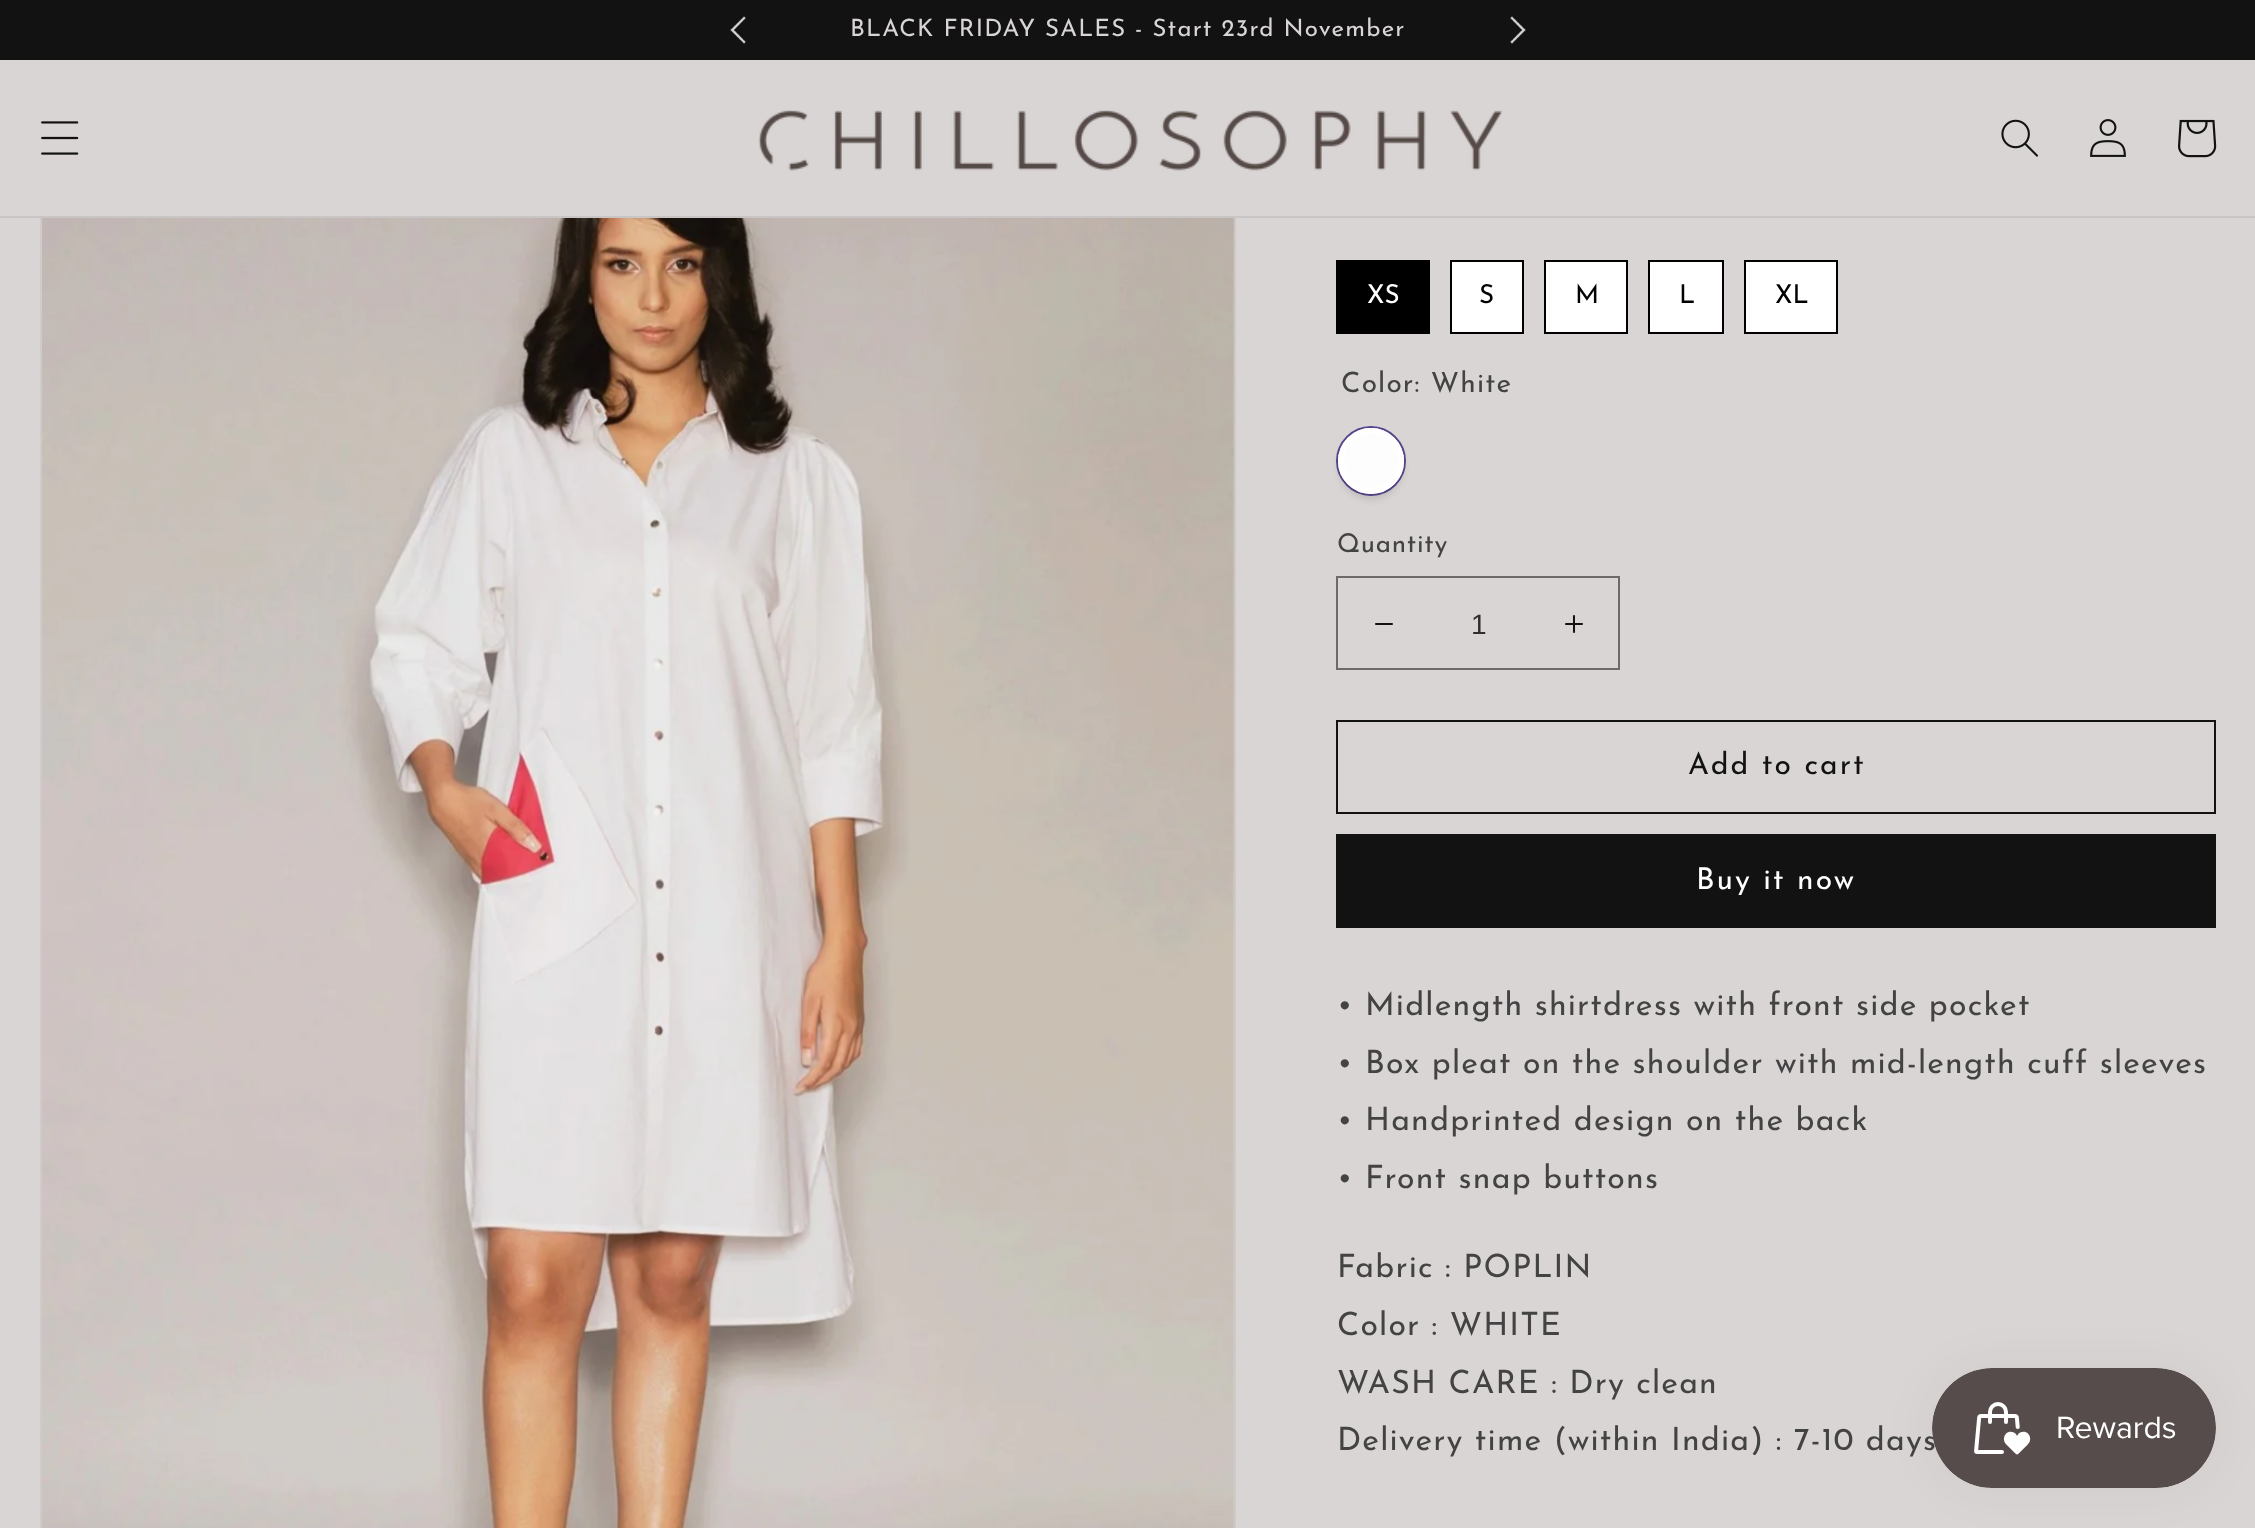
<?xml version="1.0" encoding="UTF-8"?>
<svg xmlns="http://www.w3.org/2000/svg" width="2255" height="1528">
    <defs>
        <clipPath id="clip1"><path d="M 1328 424 H 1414 V 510 H 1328 Z M 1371 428 C 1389 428 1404 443 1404 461 C 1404 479 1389 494 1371 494 C 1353 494 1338 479 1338 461 C 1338 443 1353 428 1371 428 Z" clip-rule="evenodd"/></clipPath>
        <filter id="blur1" x="-50%" y="-200%" width="200%" height="500%"><feGaussianBlur stdDeviation="3"/></filter>
        <filter id="blur2" x="-50%" y="-200%" width="200%" height="500%"><feGaussianBlur stdDeviation="25"/></filter>
    </defs>
    <rect width="100%" height="100%" fill="#DAD5D5"/>
    <rect x="41" y="61" width="1194" height="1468" fill="none" stroke="#D0CBCB" stroke-width="2"/>
    <rect x="40" y="60" width="1196" height="156" fill="#DAD5D5"/>
    <rect x="0" y="216" width="2255" height="2" fill="#CAC5C5"/>
    <rect x="0" y="0" width="2255" height="60" fill="#121212"/>
    <image x="730" y="16" width="16" height="28" href="img_01.png"/>
    <text x="850" y="36" font-family="Josefin Sans" font-size="24" font-weight="100" letter-spacing="1.2" fill="#DAD5D5">BLACK FRIDAY SALES - Start 23rd November</text>
    <image x="1510" y="16" width="16" height="28" href="img_02.png"/>
    <image x="41" y="121" width="38" height="34" href="img_03.png"/>
    <image x="758" y="110" width="745" height="61" href="img_04.png"/>
    <image x="2001" y="119" width="37" height="38" href="img_05.png"/>
    <image x="2090" y="119" width="36" height="38" href="img_06.png"/>
    <image x="2178" y="119" width="39" height="39" href="img_07.png"/>
    <image x="42" y="218" width="1193" height="1310" href="img_08.png"/>
    <rect x="1336" y="260" width="94" height="74" fill="#000000"/>
    <text x="1367" y="303" font-family="Josefin Sans" font-size="26" font-weight="100" fill="#FFFFFF">XS</text>
    <rect x="1451" y="261" width="72" height="72" fill="#FFFFFF" stroke="#000000" stroke-width="2"/>
    <text x="1479" y="303" font-family="Josefin Sans" font-size="26" font-weight="100" fill="#000000">S</text>
    <rect x="1545" y="261" width="82" height="72" fill="#FFFFFF" stroke="#000000" stroke-width="2"/>
    <text x="1575" y="303" font-family="Josefin Sans" font-size="26" font-weight="100" fill="#000000">M</text>
    <rect x="1649" y="261" width="74" height="72" fill="#FFFFFF" stroke="#000000" stroke-width="2"/>
    <text x="1679" y="303" font-family="Josefin Sans" font-size="26" font-weight="100" fill="#000000">L</text>
    <rect x="1745" y="261" width="92" height="72" fill="#FFFFFF" stroke="#000000" stroke-width="2"/>
    <text x="1775" y="303" font-family="Josefin Sans" font-size="26" font-weight="100" fill="#000000">XL</text>
    <text x="1341" y="392" font-family="Josefin Sans" font-size="28" font-weight="100" letter-spacing="1.2" fill="#444343">Color: White</text>
    <image x="1338" y="428" width="66" height="66" href="img_09.png"/>
    <circle cx="1371" cy="461" r="34" fill="none" stroke="#58468C" stroke-width="2"/>
    <g clip-path="url(#clip1)">
        <rect x="1338" y="434" width="66" height="66" rx="33" fill="#000000" fill-opacity="0.1" filter="url(#blur1)"/>
    </g>
    <circle cx="1371" cy="461" r="30" fill="none" stroke="#FFFFFF" stroke-width="6"/>
    <text x="1337" y="552" font-family="Josefin Sans" font-size="26" font-weight="100" letter-spacing="0.75" fill="#444343">Quantity</text>
    <image x="1375" y="623" width="18" height="2" href="img_10.png"/>
    <image x="1565" y="615" width="18" height="18" href="img_11.png"/>
    <rect x="1337" y="577" width="282" height="92" fill="none" stroke="#6C6A6A" stroke-width="2"/>
    <text x="1471" y="634" font-family="Liberation Sans" font-size="28" fill="#302F2F">1</text>
    <rect x="1337" y="721" width="878" height="92" fill="none" stroke="#121212" stroke-width="2"/>
    <text x="1688" y="774" font-family="Josefin Sans" font-size="30" font-weight="100" letter-spacing="2" fill="#121212">Add to cart</text>
    <rect x="1336" y="834" width="880" height="94" fill="#121212"/>
    <text x="1696" y="889" font-family="Josefin Sans" font-size="30" font-weight="100" letter-spacing="2" fill="#FFFFFF">Buy it now</text>
    <text font-family="Josefin Sans" font-size="32" font-weight="100" letter-spacing="1.2" fill="#444343">
        <tspan x="1337" y="1015">• Midlength shirtdress with front side pocket</tspan>
        <tspan x="1337" y="1073">• Box pleat on the shoulder with mid-length cuff sleeves</tspan>
        <tspan x="1337" y="1130">• Handprinted design on the back</tspan>
        <tspan x="1337" y="1188">• Front snap buttons</tspan>
    </text>
    <text font-family="Josefin Sans" font-size="32" font-weight="100" letter-spacing="1.2" fill="#444343">
        <tspan x="1337" y="1277">Fabric : POPLIN</tspan>
        <tspan x="1337" y="1335">Color : WHITE</tspan>
        <tspan x="1337" y="1393">WASH CARE : Dry clean</tspan>
        <tspan x="1337" y="1450">Delivery time (within India) : 7-10 days</tspan>
    </text>
    <rect x="1932" y="1368" width="284" height="120" rx="60" fill="#000000" fill-opacity="0.05" filter="url(#blur2)"/>
    <image x="1932" y="1368" width="284" height="120" href="img_12.png"/>
</svg>
